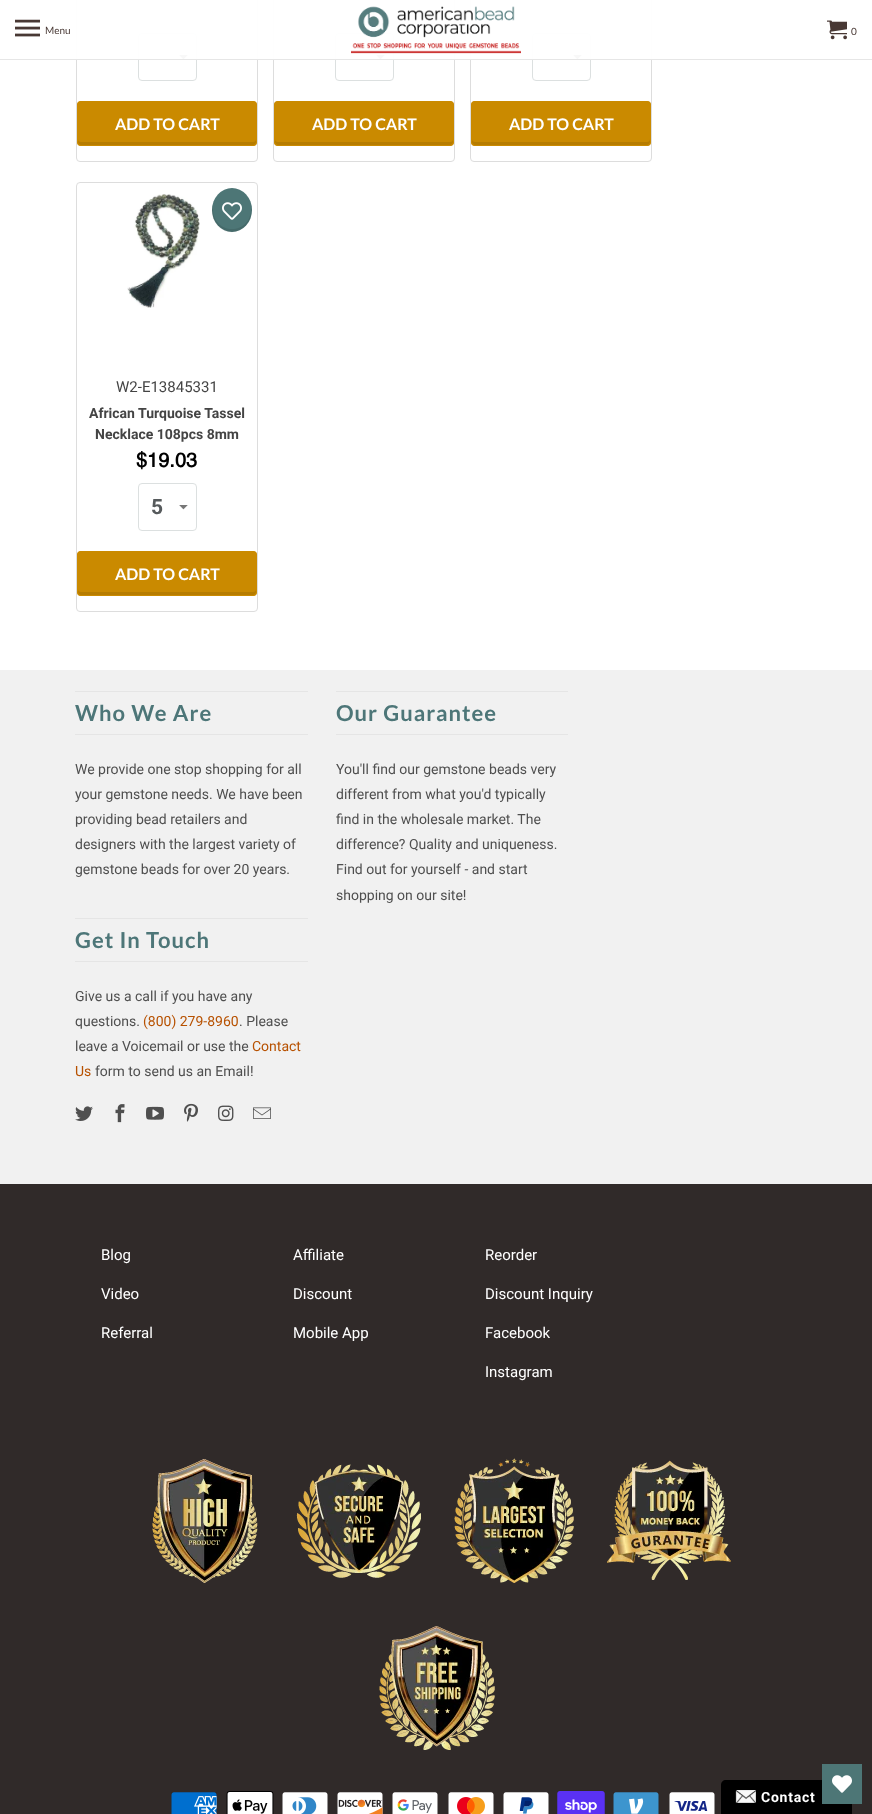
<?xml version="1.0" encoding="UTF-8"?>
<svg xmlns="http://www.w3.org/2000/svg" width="872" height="1814">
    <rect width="100%" height="100%" fill="#FFFFFF"/>
    <rect x="76.5" y="-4.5" width="181" height="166" rx="3.5" fill="none" stroke="#DDDDDD"/>
    <image x="179" y="55" width="9" height="5" href="img_04.png"/>
    <rect x="138.5" y="33.5" width="58" height="47" rx="3.5" fill="none" stroke="#DCE0E0"/>
    <rect x="273.5" y="-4.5" width="181" height="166" rx="3.5" fill="none" stroke="#DDDDDD"/>
    <image x="376" y="55" width="9" height="5" href="img_04.png"/>
    <rect x="335.5" y="33.5" width="58" height="47" rx="3.5" fill="none" stroke="#DCE0E0"/>
    <rect x="470.5" y="-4.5" width="181" height="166" rx="3.5" fill="none" stroke="#DDDDDD"/>
    <image x="573" y="55" width="9" height="5" href="img_04.png"/>
    <rect x="532.5" y="33.5" width="58" height="47" rx="3.5" fill="none" stroke="#DCE0E0"/>
    <rect x="76" y="0" width="576" height="60" fill="#FFFFFF" fill-opacity="0.95"/>
    <rect x="0" y="59" width="872" height="1" fill="#E5E5E5" fill-opacity="0.95"/>
    <image x="15" y="19" width="25" height="18" href="img_01.png"/>
    <text x="45" y="34" font-family="Lato" font-size="10" fill="#483834">Menu</text>
    <image x="351" y="6" width="170" height="48" href="img_02.png"/>
    <image x="827" y="20" width="20" height="20" href="img_03.png"/>
    <text x="851" y="35" font-family="Lato" font-size="10" fill="#483834">0</text>
    <rect x="77" y="101" width="180" height="45" rx="4" fill="#CA8A00"/>
    <path d="M 78 139 V 142 C 78 144 79 145 81 145 H 253 C 255 145 256 144 256 142 V 139 C 256 141 255 142 253 142 H 81 C 79 142 78 141 78 139 Z" fill="#B67C00"/>
    <rect x="77.5" y="101.5" width="179" height="44" rx="3.5" fill="none" stroke="#CA8A00"/>
    <text x="115" y="130" font-family="Lato" font-size="16" font-weight="700" fill="#FFFFFF">ADD TO CART</text>
    <rect x="274" y="101" width="180" height="45" rx="4" fill="#CA8A00"/>
    <path d="M 275 139 V 142 C 275 144 276 145 278 145 H 450 C 452 145 453 144 453 142 V 139 C 453 141 452 142 450 142 H 278 C 276 142 275 141 275 139 Z" fill="#B67C00"/>
    <rect x="274.5" y="101.5" width="179" height="44" rx="3.5" fill="none" stroke="#CA8A00"/>
    <text x="312" y="130" font-family="Lato" font-size="16" font-weight="700" fill="#FFFFFF">ADD TO CART</text>
    <rect x="471" y="101" width="180" height="45" rx="4" fill="#CA8A00"/>
    <path d="M 472 139 V 142 C 472 144 473 145 475 145 H 647 C 649 145 650 144 650 142 V 139 C 650 141 649 142 647 142 H 475 C 473 142 472 141 472 139 Z" fill="#B67C00"/>
    <rect x="471.5" y="101.5" width="179" height="44" rx="3.5" fill="none" stroke="#CA8A00"/>
    <text x="509" y="130" font-family="Lato" font-size="16" font-weight="700" fill="#FFFFFF">ADD TO CART</text>
    <rect x="76.5" y="182.5" width="181" height="429" rx="3.5" fill="none" stroke="#DDDDDD"/>
    <ellipse cx="232" cy="210" rx="20" ry="22" fill="#4D7676"/>
    <path d="M 251 205 C 254 237 210 237 213 205 C 211 211 212 217 215 222 C 229 244 256 227 251 205 Z" fill="#000000" fill-opacity="0.1"/>
    <image x="222" y="202" width="20" height="18" href="img_05.png"/>
    <image x="127" y="194" width="73" height="114" href="img_06.png"/>
    <text x="116" y="392" font-family="Roboto" font-size="15" fill="#444444">W2-E13845331</text>
    <text x="89" y="418" font-family="Roboto" font-size="14" font-weight="700" fill="#444444">African Turquoise Tassel</text>
    <text x="95" y="439" font-family="Roboto" font-size="14" font-weight="700" fill="#444444">Necklace 108pcs 8mm</text>
    <text x="136" y="467" font-family="Helvetica" font-size="20" font-weight="700" fill="#000000">$19.03</text>
    <image x="179" y="505" width="9" height="5" href="img_04.png"/>
    <rect x="138.5" y="483.5" width="58" height="47" rx="3.5" fill="none" stroke="#DCE0E0"/>
    <text x="151" y="514" font-family="Roboto" font-size="21" font-weight="700" fill="#565A5C">5</text>
    <rect x="77" y="551" width="180" height="45" rx="4" fill="#CA8A00"/>
    <path d="M 78 589 V 592 C 78 594 79 595 81 595 H 253 C 255 595 256 594 256 592 V 589 C 256 591 255 592 253 592 H 81 C 79 592 78 591 78 589 Z" fill="#B67C00"/>
    <rect x="77.5" y="551.5" width="179" height="44" rx="3.5" fill="none" stroke="#CA8A00"/>
    <text x="115" y="580" font-family="Lato" font-size="16" font-weight="700" fill="#FFFFFF">ADD TO CART</text>
    <rect x="0" y="670" width="872" height="514" fill="#F1F1F1"/>
    <rect x="75" y="691" width="233" height="1" fill="#E5E5E5"/>
    <rect x="75" y="734" width="233" height="1" fill="#E5E5E5"/>
    <text x="75" y="721" font-family="Lato" font-size="22" font-weight="700" letter-spacing="1" fill="#4D7678">Who We Are</text>
    <text font-family="Roboto" font-size="14" fill="#4F4F4F">
        <tspan x="75" y="774">We provide one stop shopping for all</tspan>
        <tspan x="75" y="799">your gemstone needs. We have been</tspan>
        <tspan x="75" y="824">providing bead retailers and</tspan>
        <tspan x="75" y="849">designers with the largest variety of</tspan>
        <tspan x="75" y="874">gemstone beads for over 20 years.</tspan>
    </text>
    <rect x="336" y="691" width="232" height="1" fill="#E5E5E5"/>
    <rect x="336" y="734" width="232" height="1" fill="#E5E5E5"/>
    <text x="336" y="721" font-family="Lato" font-size="22" font-weight="700" letter-spacing="1" fill="#4D7678">Our Guarantee</text>
    <text font-family="Roboto" font-size="14" fill="#4F4F4F">
        <tspan x="336" y="774">You'll find our gemstone beads very</tspan>
        <tspan x="336" y="799">different from what you'd typically</tspan>
        <tspan x="336" y="824">find in the wholesale market. The</tspan>
        <tspan x="336" y="849">difference? Quality and uniqueness.</tspan>
        <tspan x="336" y="874">Find out for yourself - and start</tspan>
        <tspan x="336" y="900">shopping on our site!</tspan>
    </text>
    <rect x="75" y="918" width="233" height="1" fill="#E5E5E5"/>
    <rect x="75" y="961" width="233" height="1" fill="#E5E5E5"/>
    <text x="75" y="948" font-family="Lato" font-size="22" font-weight="700" letter-spacing="1" fill="#4D7678">Get In Touch</text>
    <text font-family="Roboto" font-size="14" fill="#4F4F4F">
        <tspan x="75" y="1001">Give us a call if you have any</tspan>
        <tspan x="75" y="1026">questions.</tspan>
    </text>
    <text x="143" y="1026" font-family="Roboto" font-size="14" fill="#B75100">(800) 279-8960</text>
    <text x="239" y="1026" font-family="Roboto" font-size="14" fill="#4F4F4F">. Please</text>
    <text x="75" y="1051" font-family="Roboto" font-size="14" fill="#4F4F4F">leave a Voicemail or use the</text>
    <text x="252" y="1051" font-family="Roboto" font-size="14" fill="#B75100">Contact</text>
    <text x="75" y="1076" font-family="Roboto" font-size="14" fill="#B75100">Us</text>
    <text x="95" y="1076" font-family="Roboto" font-size="14" fill="#4F4F4F">form to send us an Email!</text>
    <image x="75" y="1106" width="18" height="15" href="img_07.png"/>
    <image x="115" y="1104" width="10" height="19" href="img_08.png"/>
    <image x="146" y="1106" width="18" height="14" href="img_09.png"/>
    <image x="184" y="1103" width="14" height="19" href="img_10.png"/>
    <image x="218" y="1105" width="16" height="16" href="img_11.png"/>
    <image x="253" y="1107" width="18" height="12" href="img_12.png"/>
    <rect x="0" y="1184" width="872" height="630" fill="#302A29"/>
    <text x="101" y="1260" font-family="Roboto" font-size="15" fill="#FFFFFF">Blog</text>
    <text x="101" y="1299" font-family="Roboto" font-size="15" fill="#FFFFFF">Video</text>
    <text x="101" y="1338" font-family="Roboto" font-size="15" fill="#FFFFFF">Referral</text>
    <text x="293" y="1260" font-family="Roboto" font-size="15" fill="#FFFFFF">Affiliate</text>
    <text x="293" y="1299" font-family="Roboto" font-size="15" fill="#FFFFFF">Discount</text>
    <text x="293" y="1338" font-family="Roboto" font-size="15" fill="#FFFFFF">Mobile App</text>
    <text x="485" y="1260" font-family="Roboto" font-size="15" fill="#FFFFFF">Reorder</text>
    <text x="485" y="1299" font-family="Roboto" font-size="15" fill="#FFFFFF">Discount Inquiry</text>
    <text x="485" y="1338" font-family="Roboto" font-size="15" fill="#FFFFFF">Facebook</text>
    <text x="485" y="1377" font-family="Roboto" font-size="15" fill="#FFFFFF">Instagram</text>
    <image x="152" y="1459" width="106" height="124" href="img_13.png"/>
    <image x="296" y="1464" width="125" height="114" href="img_14.png"/>
    <image x="454" y="1458" width="120" height="125" href="img_15.png"/>
    <image x="607" y="1460" width="124" height="120" href="img_16.png"/>
    <image x="379" y="1626" width="116" height="124" href="img_17.png"/>
    <image x="171" y="1792" width="46" height="22" href="img_18.png"/>
    <image x="226" y="1791" width="48" height="23" href="img_19.png"/>
    <image x="282" y="1792" width="46" height="22" href="img_20.png"/>
    <image x="337" y="1792" width="46" height="22" href="img_21.png"/>
    <image x="392" y="1792" width="46" height="22" href="img_22.png"/>
    <image x="448" y="1792" width="46" height="22" href="img_23.png"/>
    <image x="503" y="1792" width="46" height="22" href="img_24.png"/>
    <image x="557" y="1791" width="48" height="23" href="img_25.png"/>
    <image x="613" y="1792" width="46" height="22" href="img_26.png"/>
    <image x="669" y="1792" width="46" height="22" href="img_27.png"/>
    <path d="M 726 1780 H 847 C 850 1780 852 1782 852 1785 V 1814 H 721 V 1785 C 721 1782 723 1780 726 1780 Z" fill="#000000"/>
    <image x="735" y="1790" width="21" height="13" href="img_28.png"/>
    <text x="761" y="1802" font-family="Roboto" font-size="14" font-weight="700" letter-spacing="0.75" fill="#FFFFFF">Contact</text>
    <rect x="822" y="1764" width="40" height="40" fill="#4D7676"/>
    <image x="832" y="1775" width="20" height="18" href="img_29.png"/>
</svg>
